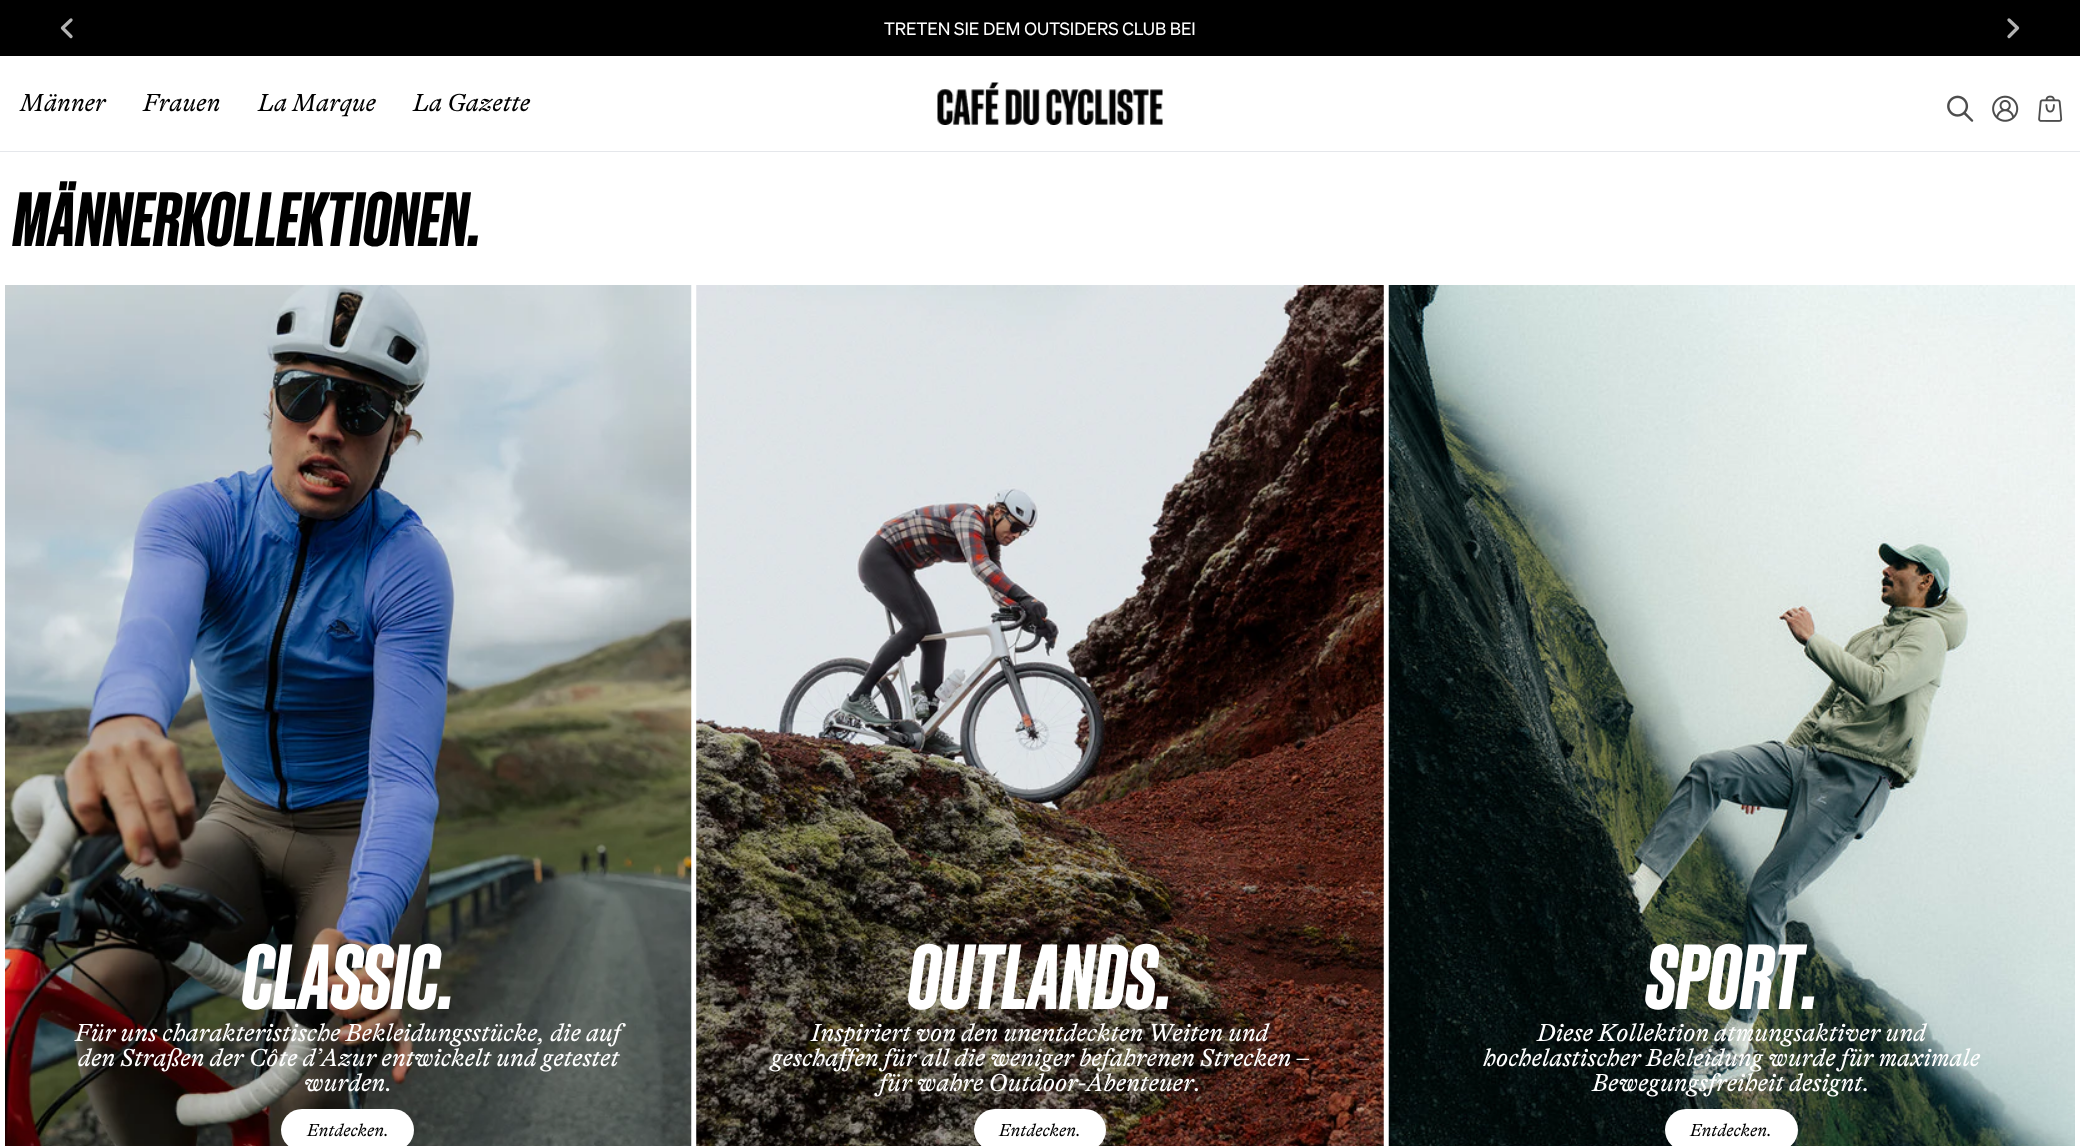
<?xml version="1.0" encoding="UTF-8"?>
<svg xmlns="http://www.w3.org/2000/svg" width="2080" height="1146">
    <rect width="100%" height="100%" fill="#FFFFFF"/>
    <rect x="0" y="0" width="2080" height="56" fill="#000000"/>
    <path d="M 71 20 L 62.5 28 L 71 36.5" fill="none" stroke="#B3B3B3" stroke-width="3.3" stroke-linecap="round" stroke-linejoin="round"/>
    <path d="M 2009 36.5 L 2017.5 28 L 2009 20" fill="none" stroke="#B3B3B3" stroke-width="3.3" stroke-linecap="round" stroke-linejoin="round"/>
    <text x="884" y="35" font-family="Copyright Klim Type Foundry" font-size="17.5" fill="#FFFFFF">TRETEN SIE DEM OUTSIDERS CLUB BEI</text>
    <text x="20" y="111" font-family="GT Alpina" font-size="25" font-style="italic" fill="#000000">Männer</text>
    <text x="143" y="111" font-family="GT Alpina" font-size="25" font-style="italic" fill="#000000">Frauen</text>
    <text x="258" y="111" font-family="GT Alpina" font-size="25" font-style="italic" fill="#000000">La Marque</text>
    <text x="413" y="111" font-family="GT Alpina" font-size="25" font-style="italic" fill="#000000">La Gazette</text>
    <image x="937" y="82" width="226" height="43" href="img_01.png"/>
    <image x="1947" y="95" width="27" height="27" href="img_02.png"/>
    <image x="1992" y="95" width="27" height="27" href="img_03.png"/>
    <image x="2038" y="95" width="25" height="27" href="img_04.png"/>
    <rect x="0" y="151" width="2080" height="1" fill="#E5E7EB"/>
    <text x="13" y="246" font-family="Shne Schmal" font-size="75" font-weight="700" font-style="italic" fill="#000000">MÄNNERKOLLEKTIONEN.</text>
    <image x="5" y="285" width="687" height="861" href="img_05.png"/>
    <text x="242" y="1009" font-family="Shne Schmal" font-size="90" font-weight="700" font-style="italic" fill="#FFFFFF">CLASSIC.</text>
    <text x="75" y="1041" font-family="GT Alpina" font-size="25" font-style="italic" fill="#FFFFFF">Für uns charakteristische Bekleidungsstücke, die auf</text>
    <text x="78" y="1066" font-family="GT Alpina" font-size="25" font-style="italic" fill="#FFFFFF">den Straßen der Côte d’Azur entwickelt und getestet</text>
    <text x="304" y="1091" font-family="GT Alpina" font-size="25" font-style="italic" fill="#FFFFFF">wurden.</text>
    <rect x="281" y="1109" width="133" height="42" rx="21" fill="#FFFFFF"/>
    <text x="307" y="1136" font-family="GT Alpina" font-size="17.5" font-style="italic" fill="#000000">Entdecken.</text>
    <image x="696" y="285" width="688" height="861" href="img_06.png"/>
    <text x="908" y="1009" font-family="Shne Schmal" font-size="90" font-weight="700" font-style="italic" fill="#FFFFFF">OUTLANDS.</text>
    <text x="811" y="1041" font-family="GT Alpina" font-size="25" font-style="italic" fill="#FFFFFF">Inspiriert von den unentdeckten Weiten und</text>
    <text x="771" y="1066" font-family="GT Alpina" font-size="25" font-style="italic" fill="#FFFFFF">geschaffen für all die weniger befahrenen Strecken –</text>
    <text x="879" y="1091" font-family="GT Alpina" font-size="25" font-style="italic" fill="#FFFFFF">für wahre Outdoor-Abenteuer.</text>
    <rect x="974" y="1109" width="132" height="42" rx="21" fill="#FFFFFF"/>
    <text x="999" y="1136" font-family="GT Alpina" font-size="17.5" font-style="italic" fill="#000000">Entdecken.</text>
    <image x="1388" y="285" width="687" height="861" href="img_07.png"/>
    <text x="1646" y="1009" font-family="Shne Schmal" font-size="90" font-weight="700" font-style="italic" fill="#FFFFFF">SPORT.</text>
    <text x="1537" y="1041" font-family="GT Alpina" font-size="25" font-style="italic" fill="#FFFFFF">Diese Kollektion atmungsaktiver und</text>
    <text x="1483" y="1066" font-family="GT Alpina" font-size="25" font-style="italic" fill="#FFFFFF">hochelastischer Bekleidung wurde für maximale</text>
    <text x="1592" y="1091" font-family="GT Alpina" font-size="25" font-style="italic" fill="#FFFFFF">Bewegungsfreiheit designt.</text>
    <rect x="1665" y="1109" width="133" height="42" rx="21" fill="#FFFFFF"/>
    <text x="1690" y="1136" font-family="GT Alpina" font-size="17.5" font-style="italic" fill="#000000">Entdecken.</text>
</svg>
